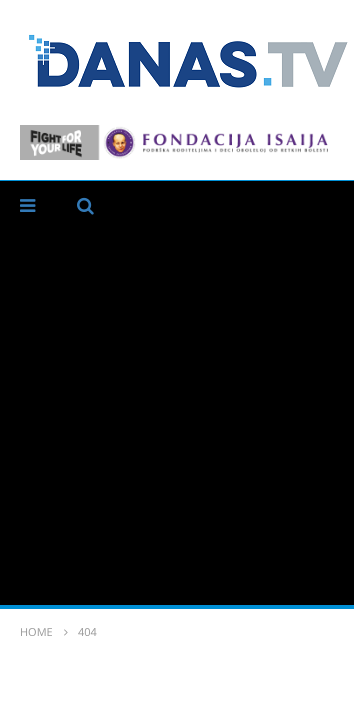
<?xml version="1.0" encoding="UTF-8"?>
<svg xmlns="http://www.w3.org/2000/svg" width="354" height="719">
    <rect width="100%" height="100%" fill="#FFFFFF"/>
    <image x="29" y="34" width="319" height="54" href="img_01.png"/>
    <image x="20" y="125" width="308" height="35" href="img_02.png"/>
    <rect x="0" y="181" width="354" height="424" fill="#000000"/>
    <rect x="0" y="180" width="354" height="1" fill="#0090D6"/>
    <rect x="0" y="605" width="354" height="4" fill="#0090D6"/>
    <image x="20" y="199" width="16" height="13" href="img_03.png"/>
    <image x="77" y="197" width="17" height="18" href="img_04.png"/>
    <text x="20" y="636" font-family="Open Sans" font-size="11" fill="#999999">HOME</text>
    <image x="64" y="629" width="4" height="7" href="img_05.png"/>
    <text x="78" y="636" font-family="Open Sans" font-size="11" fill="#999999">404</text>
</svg>
